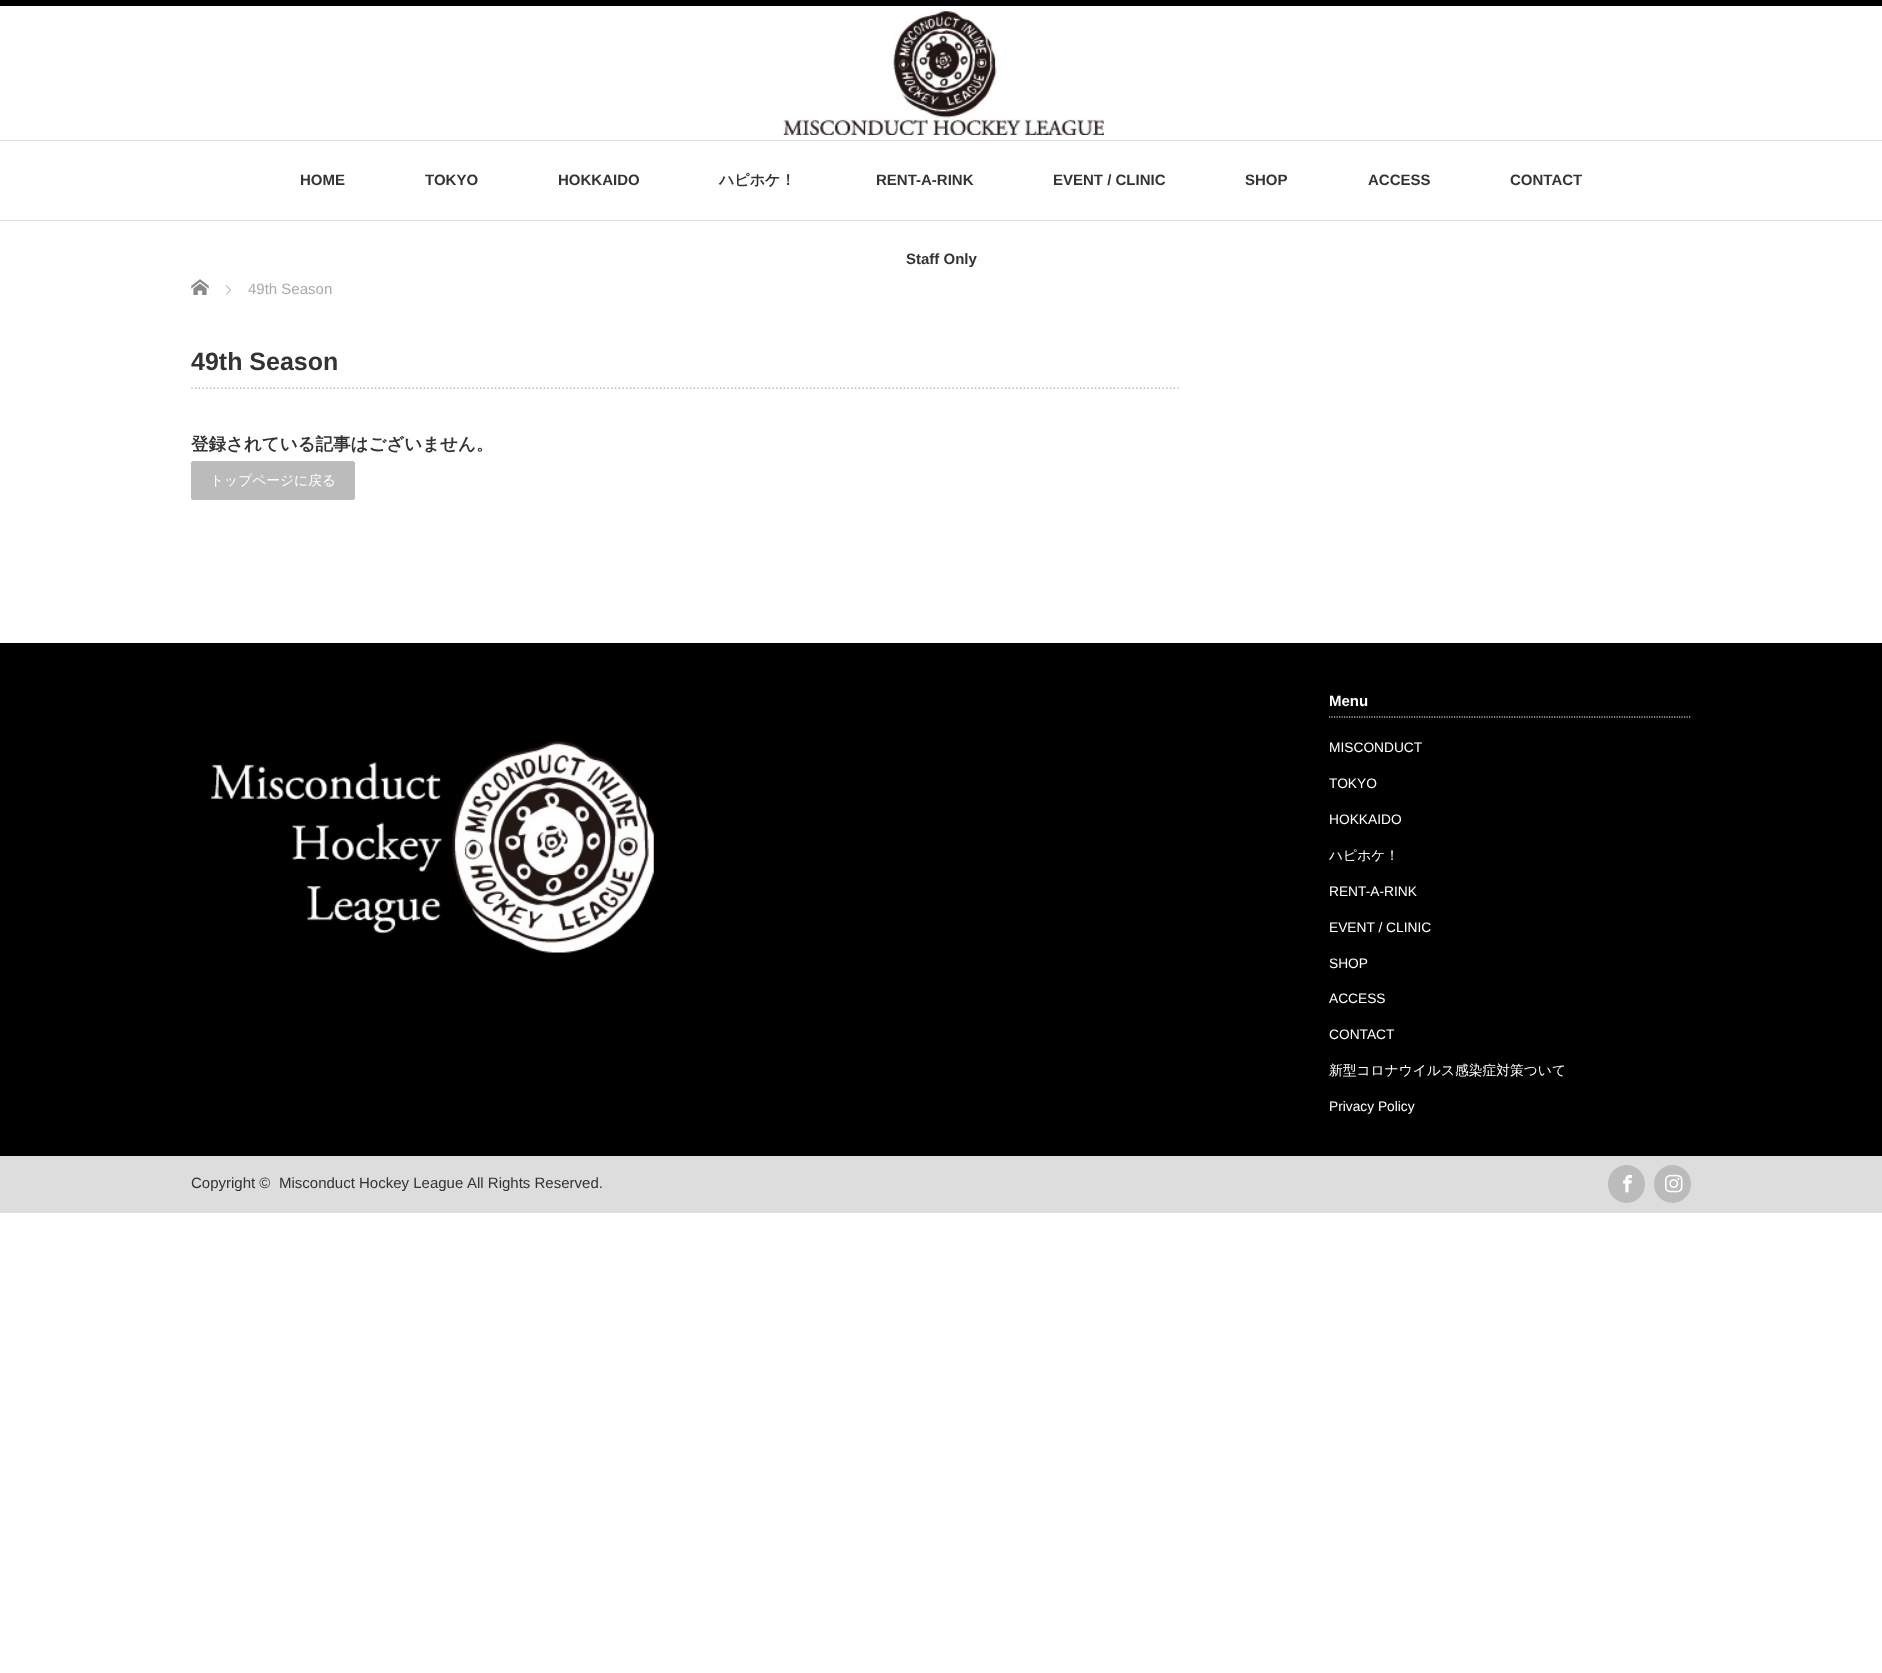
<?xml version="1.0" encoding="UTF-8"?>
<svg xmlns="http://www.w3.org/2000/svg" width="1882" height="1673">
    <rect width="100%" height="100%" fill="#FFFFFF"/>
    <rect x="0" y="0" width="1882" height="6" fill="#000000"/>
    <rect x="0" y="220" width="1882" height="1" fill="#DDDDDD"/>
    <image x="783" y="10" width="321" height="125" href="img_01.png"/>
    <rect x="0" y="140" width="1882" height="1" fill="#DDDDDD"/>
    <text x="300" y="185" font-family="Liberation Sans" font-size="15" font-weight="700" fill="#333333">HOME</text>
    <text x="425" y="185" font-family="Liberation Sans" font-size="15" font-weight="700" fill="#333333">TOKYO</text>
    <text x="558" y="185" font-family="Liberation Sans" font-size="15" font-weight="700" fill="#333333">HOKKAIDO</text>
    <text x="719" y="185" font-family="WenQuanYi Zen Hei" font-size="15" font-weight="700" fill="#333333">ハピホケ！</text>
    <text x="876" y="185" font-family="Liberation Sans" font-size="15" font-weight="700" fill="#333333">RENT-A-RINK</text>
    <text x="1053" y="185" font-family="Liberation Sans" font-size="15" font-weight="700" fill="#333333">EVENT / CLINIC</text>
    <text x="1245" y="185" font-family="Liberation Sans" font-size="15" font-weight="700" fill="#333333">SHOP</text>
    <text x="1368" y="185" font-family="Liberation Sans" font-size="15" font-weight="700" fill="#333333">ACCESS</text>
    <text x="1510" y="185" font-family="Liberation Sans" font-size="15" font-weight="700" fill="#333333">CONTACT</text>
    <text x="906" y="264" font-family="Liberation Sans" font-size="15" font-weight="700" fill="#333333">Staff Only</text>
    <image x="191" y="279" width="18" height="16" href="img_02.png"/>
    <image x="225" y="285" width="6" height="10" href="img_03.png"/>
    <text x="248" y="294" font-family="Liberation Sans" font-size="15" fill="#AAAAAA">49th Season</text>
    <image x="191" y="387" width="988" height="2" href="img_04.png"/>
    <text x="191" y="370" font-family="Liberation Sans" font-size="25" font-weight="700" fill="#333333">49th Season</text>
    <text x="191" y="450" font-family="WenQuanYi Zen Hei" font-size="17.5" font-weight="700" fill="#333333">登録されている記事はございません。</text>
    <rect x="191" y="461" width="164" height="39" rx="2.5" fill="#BBBBBB"/>
    <text x="210" y="485" font-family="WenQuanYi Zen Hei" font-size="13.75" font-weight="500" fill="#FFFFFF">トップページに戻る</text>
    <rect x="0" y="643" width="1882" height="513" fill="#000000"/>
    <image x="211" y="741" width="443" height="212" href="img_05.png"/>
    <path d="M 1329 717 H 1691" fill="none" stroke="#FFFFFF" stroke-width="1.2" stroke-dasharray="1.25 1.25"/>
    <text x="1329" y="706" font-family="Liberation Sans" font-size="15" font-weight="700" fill="#FFFFFF">Menu</text>
    <text x="1329" y="752" font-family="Liberation Sans" font-size="13.75" fill="#FFFFFF">MISCONDUCT</text>
    <text x="1329" y="788" font-family="Liberation Sans" font-size="13.75" fill="#FFFFFF">TOKYO</text>
    <text x="1329" y="824" font-family="Liberation Sans" font-size="13.75" fill="#FFFFFF">HOKKAIDO</text>
    <text x="1329" y="860" font-family="WenQuanYi Zen Hei" font-size="13.75" font-weight="500" fill="#FFFFFF">ハピホケ！</text>
    <text x="1329" y="896" font-family="Liberation Sans" font-size="13.75" fill="#FFFFFF">RENT-A-RINK</text>
    <text x="1329" y="932" font-family="Liberation Sans" font-size="13.75" fill="#FFFFFF">EVENT / CLINIC</text>
    <text x="1329" y="968" font-family="Liberation Sans" font-size="13.75" fill="#FFFFFF">SHOP</text>
    <text x="1329" y="1003" font-family="Liberation Sans" font-size="13.75" fill="#FFFFFF">ACCESS</text>
    <text x="1329" y="1039" font-family="Liberation Sans" font-size="13.75" fill="#FFFFFF">CONTACT</text>
    <text x="1329" y="1075" font-family="WenQuanYi Zen Hei" font-size="13.75" font-weight="500" fill="#FFFFFF">新型コロナウイルス感染症対策ついて</text>
    <text x="1329" y="1111" font-family="Liberation Sans" font-size="13.75" fill="#FFFFFF">Privacy Policy</text>
    <rect x="0" y="1156" width="1882" height="57" fill="#DDDDDD"/>
    <text x="191" y="1188" font-family="Liberation Sans" font-size="15" fill="#333333">Copyright ©</text>
    <text x="279" y="1188" font-family="Liberation Sans" font-size="15" fill="#333333">Misconduct Hockey League</text>
    <text x="467" y="1188" font-family="Liberation Sans" font-size="15" fill="#333333">All Rights Reserved.</text>
    <rect x="1608" y="1165" width="37" height="38" rx="18.5" fill="#BBBBBB"/>
    <image x="1623" y="1174" width="9" height="19" href="img_06.png"/>
    <rect x="1654" y="1165" width="37" height="38" rx="18.5" fill="#BBBBBB"/>
    <image x="1665" y="1174" width="18" height="19" href="img_07.png"/>
</svg>
